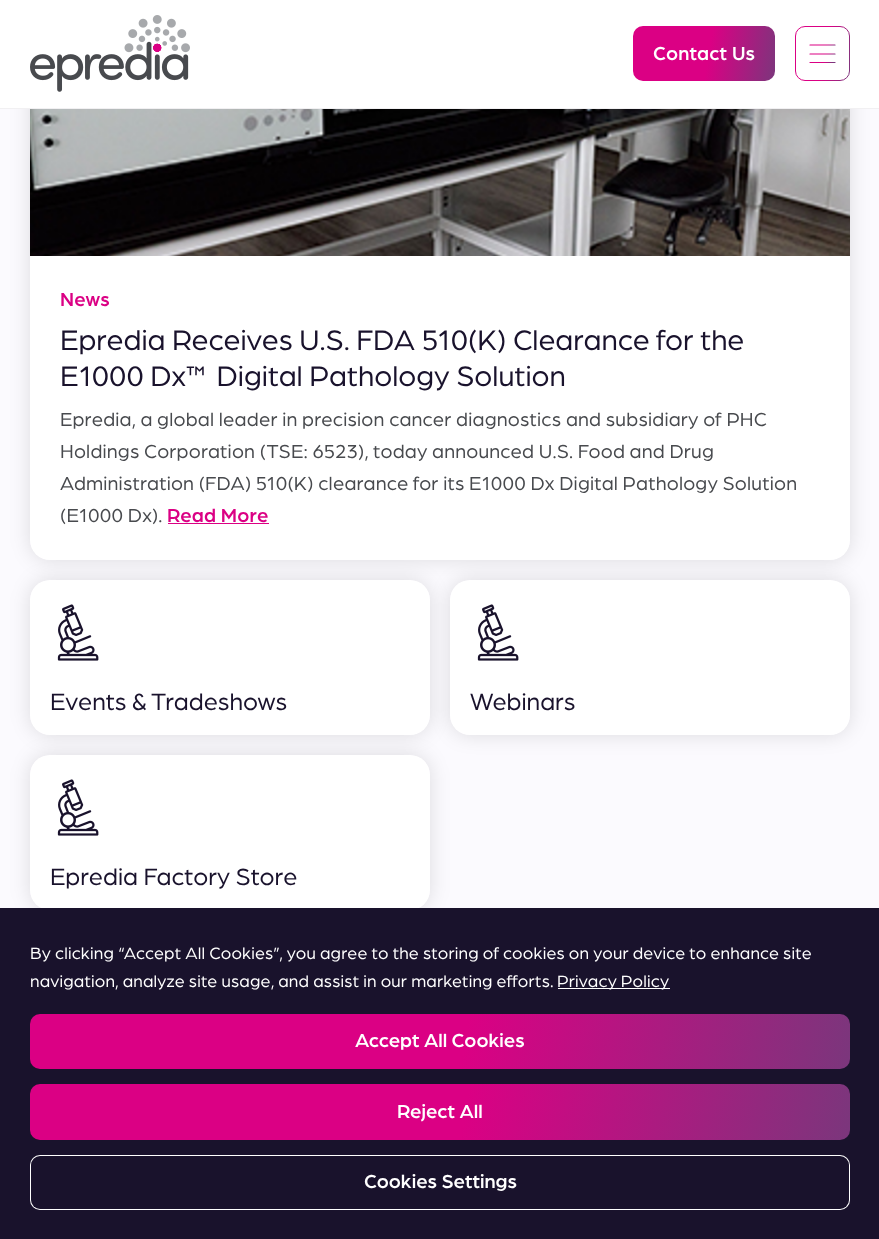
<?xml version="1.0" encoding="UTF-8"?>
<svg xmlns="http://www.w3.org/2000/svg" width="879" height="1239">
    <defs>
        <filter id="blur1" x="-50%" y="-200%" width="200%" height="500%"><feGaussianBlur stdDeviation="10"/></filter>
        <linearGradient id="g1" gradientUnits="userSpaceOnUse" x1="630" y1="41" x2="778" y2="67"><stop offset="0.53" stop-color="#DB0084"/><stop offset="1" stop-color="#7B367C"/></linearGradient>
        <linearGradient id="g2" gradientUnits="userSpaceOnUse" x1="811" y1="26" x2="858" y2="35"><stop offset="0.38" stop-color="#DB0084"/><stop offset="1" stop-color="#7B367C"/></linearGradient>
        <linearGradient id="g3" gradientUnits="userSpaceOnUse" x1="817" y1="45" x2="819" y2="51"><stop offset="0.38" stop-color="#DB0084"/><stop offset="1" stop-color="#7B367C"/></linearGradient>
        <linearGradient id="g4" gradientUnits="userSpaceOnUse" x1="817" y1="54" x2="819" y2="60"><stop offset="0.38" stop-color="#DB0084"/><stop offset="1" stop-color="#7B367C"/></linearGradient>
        <linearGradient id="g5" gradientUnits="userSpaceOnUse" x1="817" y1="63" x2="819" y2="68"><stop offset="0.38" stop-color="#DB0084"/><stop offset="1" stop-color="#7B367C"/></linearGradient>
        <linearGradient id="g6" gradientUnits="userSpaceOnUse" x1="38" y1="970" x2="842" y2="1112"><stop offset="0.53" stop-color="#DB0084"/><stop offset="1" stop-color="#7B367C"/></linearGradient>
        <linearGradient id="g7" gradientUnits="userSpaceOnUse" x1="38" y1="1041" x2="842" y2="1183"><stop offset="0.53" stop-color="#DB0084"/><stop offset="1" stop-color="#7B367C"/></linearGradient>
    </defs>
    <rect width="100%" height="100%" fill="#FBFAFE"/>
    <rect x="30" y="-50" width="820" height="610" rx="20" fill="#373137" fill-opacity="0.12" filter="url(#blur1)"/>
    <rect x="30" y="-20" width="820" height="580" rx="20" fill="#FFFFFF"/>
    <rect x="0" y="0" width="879" height="108" fill="#FFFFFF"/>
    <rect x="0" y="108" width="879" height="1" fill="#F1F0F2"/>
    <image x="30" y="15" width="160" height="77" href="img_01.png"/>
    <rect x="633" y="26" width="142" height="55" rx="10" fill="url(#g1)"/>
    <text x="653" y="60" font-family="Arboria" font-size="20" font-weight="500" letter-spacing="0.2" fill="#FFFFFF">Contact Us</text>
    <rect x="795.5" y="26.5" width="54" height="54" rx="9.5" fill="none" stroke="url(#g2)"/>
    <path d="M 810 45 H 835" fill="none" stroke="url(#g3)" stroke-width="1.2" stroke-linecap="round"/>
    <path d="M 810 54 H 835" fill="none" stroke="url(#g4)" stroke-width="1.2" stroke-linecap="round"/>
    <path d="M 810 62.5 H 835" fill="none" stroke="url(#g5)" stroke-width="1.2" stroke-linecap="round"/>
    <image x="30" y="109" width="820" height="147" href="img_02.png"/>
    <text x="60" y="306" font-family="Arboria" font-size="20" font-weight="500" letter-spacing="0.2" fill="#DB0084">News</text>
    <text font-family="Arboria" font-size="30" fill="#19122C">
        <tspan x="60" y="350">Epredia Receives U.S. FDA 510(K) Clearance for the</tspan>
        <tspan x="60" y="386">E1000 Dx™ Digital Pathology Solution</tspan>
    </text>
    <text font-family="Arboria" font-size="20" letter-spacing="0.2" fill="#484A4E">
        <tspan x="60" y="426">Epredia, a global leader in precision cancer diagnostics and subsidiary of PHC</tspan>
        <tspan x="60" y="458">Holdings Corporation (TSE: 6523), today announced U.S. Food and Drug</tspan>
        <tspan x="60" y="490">Administration (FDA) 510(K) clearance for its E1000 Dx Digital Pathology Solution</tspan>
        <tspan x="60" y="522">(E1000 Dx).</tspan>
    </text>
    <text x="167" y="522" font-family="Arboria" font-size="20" font-weight="500" letter-spacing="0.2" fill="#DB0084">Read More</text>
    <rect x="168" y="523" width="101" height="1" fill="#DB0084"/>
    <rect x="30" y="580" width="400" height="155" rx="20" fill="#373137" fill-opacity="0.12" filter="url(#blur1)"/>
    <rect x="30" y="580" width="400" height="155" rx="20" fill="#FFFFFF"/>
    <image x="57" y="604" width="42" height="57" href="img_03.png"/>
    <text x="50" y="710" font-family="Arboria" font-size="25" fill="#19122C">Events &amp; Tradeshows</text>
    <rect x="450" y="580" width="400" height="155" rx="20" fill="#373137" fill-opacity="0.12" filter="url(#blur1)"/>
    <rect x="450" y="580" width="400" height="155" rx="20" fill="#FFFFFF"/>
    <image x="477" y="604" width="42" height="57" href="img_03.png"/>
    <text x="470" y="710" font-family="Arboria" font-size="25" fill="#19122C">Webinars</text>
    <rect x="30" y="755" width="400" height="155" rx="20" fill="#373137" fill-opacity="0.12" filter="url(#blur1)"/>
    <rect x="30" y="755" width="400" height="155" rx="20" fill="#FFFFFF"/>
    <image x="57" y="779" width="42" height="57" href="img_03.png"/>
    <text x="50" y="885" font-family="Arboria" font-size="25" fill="#19122C">Epredia Factory Store</text>
    <rect x="0" y="908" width="879" height="331" fill="#19122C"/>
    <text font-family="Arboria" font-size="17.5" letter-spacing="0.18" fill="#FFFFFF">
        <tspan x="30" y="959">By clicking “Accept All Cookies”, you agree to the storing of cookies on your device to enhance site</tspan>
        <tspan x="30" y="987">navigation, analyze site usage, and assist in our marketing efforts.</tspan>
    </text>
    <rect x="558" y="988" width="112" height="1" fill="#FFFFFF"/>
    <text x="557" y="987" font-family="Arboria" font-size="17.5" letter-spacing="0.18" fill="#FFFFFF">Privacy Policy</text>
    <rect x="30" y="1014" width="820" height="55" rx="10" fill="url(#g6)"/>
    <text x="355" y="1047" font-family="Arboria" font-size="20" font-weight="500" fill="#FFFFFF">Accept All Cookies</text>
    <rect x="30" y="1084" width="820" height="56" rx="10" fill="url(#g7)"/>
    <text x="397" y="1118" font-family="Arboria" font-size="20" font-weight="500" fill="#FFFFFF">Reject All</text>
    <rect x="30" y="1155" width="820" height="55" rx="10" fill="#FFFFFF"/>
    <rect x="31" y="1156" width="818" height="53" rx="9" fill="#19122C"/>
    <text x="364" y="1188" font-family="Arboria" font-size="20" font-weight="500" fill="#FFFFFF">Cookies Settings</text>
</svg>
